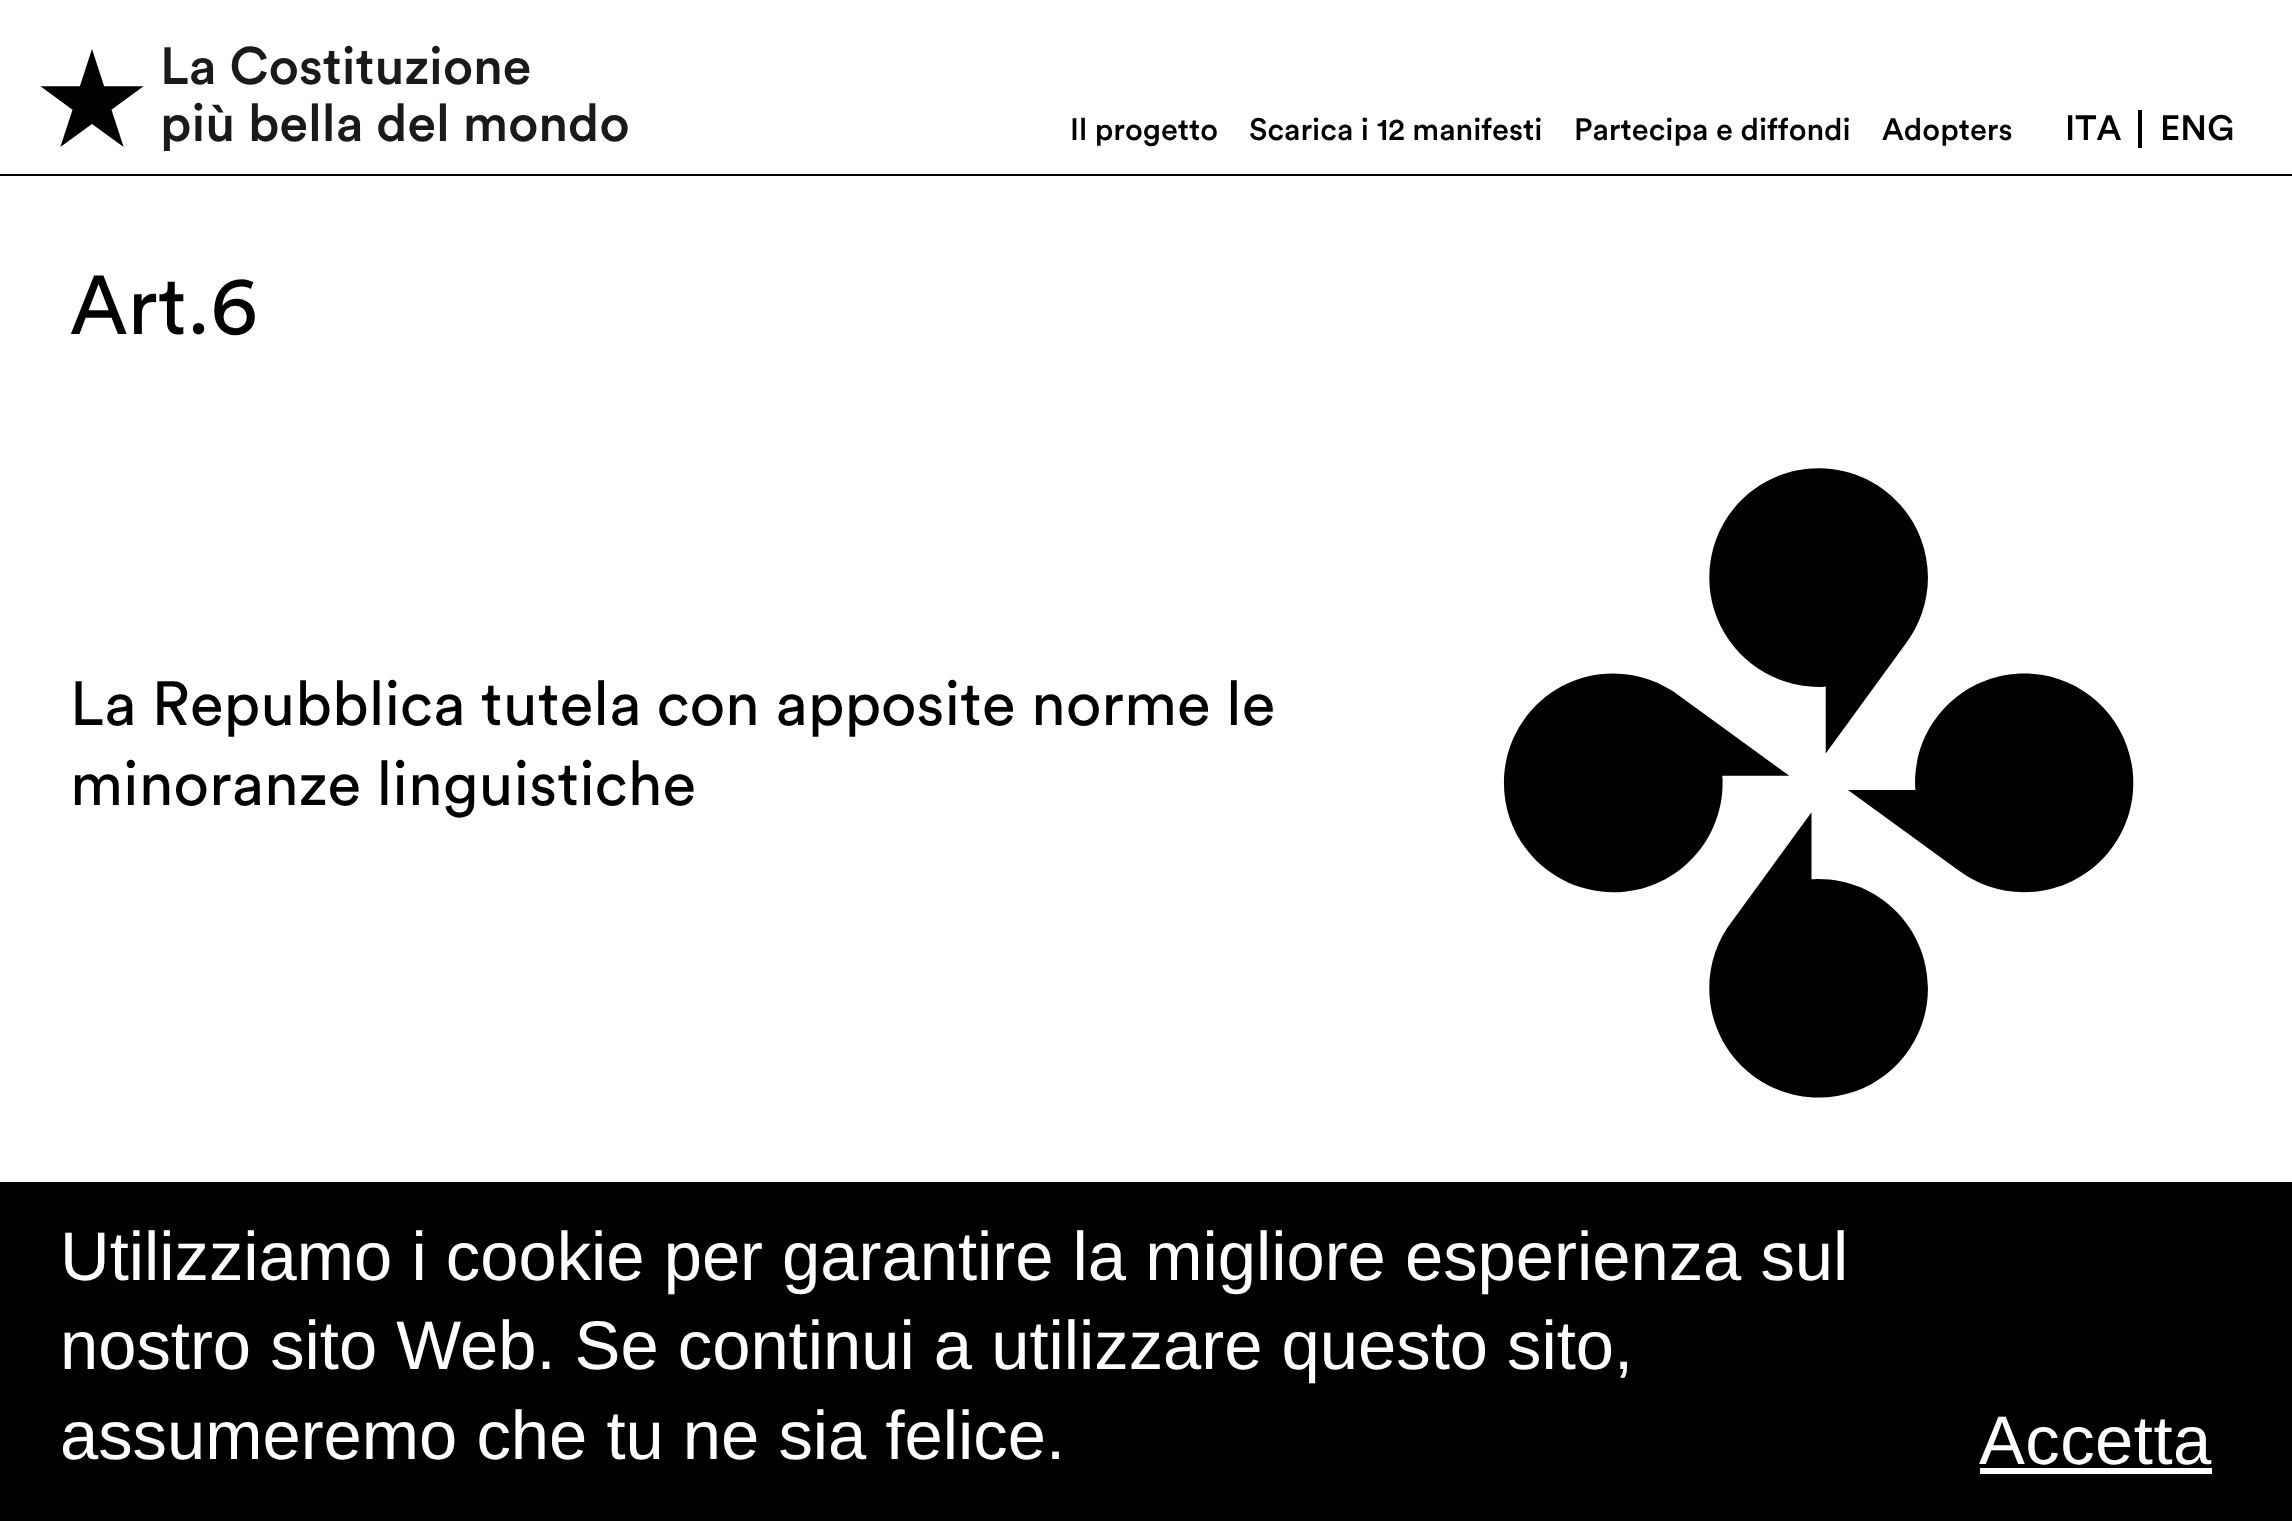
<?xml version="1.0" encoding="UTF-8"?>
<svg xmlns="http://www.w3.org/2000/svg" width="2292" height="1521">
    <rect width="100%" height="100%" fill="#FFFFFF"/>
    <rect x="0" y="174" width="2292" height="2" fill="#000000"/>
    <image x="40" y="49" width="104" height="98" href="img_01.png"/>
    <text font-family="Circular" font-size="52" font-weight="500" fill="#1A1A1A">
        <tspan x="160" y="84">La Costituzione</tspan>
        <tspan x="160" y="141">più bella del mondo</tspan>
    </text>
    <text x="1070" y="140" font-family="Circular" font-size="30.75" font-weight="500" fill="#000000">Il progetto</text>
    <text x="1249" y="140" font-family="Circular" font-size="30.75" font-weight="500" fill="#000000">Scarica i 12 manifesti</text>
    <text x="1574" y="140" font-family="Circular" font-size="30.75" font-weight="500" fill="#000000">Partecipa e diffondi</text>
    <text x="1882" y="140" font-family="Circular" font-size="30.75" font-weight="500" fill="#000000">Adopters</text>
    <text x="2065" y="140" font-family="Circular" font-size="35" font-weight="500" fill="#000000">ITA</text>
    <rect x="2138" y="110" width="4" height="38" fill="#000000"/>
    <text x="2160" y="140" font-family="Circular" font-size="35" font-weight="500" fill="#000000">ENG</text>
    <text x="70" y="334" font-family="Circular" font-size="82.5" fill="#000000">Art.6</text>
    <text font-family="Circular" font-size="61.9" fill="#000000">
        <tspan x="70" y="725">La Repubblica tutela con apposite norme le</tspan>
        <tspan x="70" y="805">minoranze linguistiche</tspan>
    </text>
    <image x="1503" y="468" width="631" height="630" href="img_02.png"/>
    <rect x="0" y="1182" width="2292" height="339" fill="#000000"/>
    <text font-family="Liberation Sans" font-size="68.75" fill="#FFFFFF">
        <tspan x="60" y="1280">Utilizziamo i cookie per garantire la migliore esperienza sul</tspan>
        <tspan x="60" y="1369">nostro sito Web. Se continui a utilizzare questo sito,</tspan>
        <tspan x="60" y="1459">assumeremo che tu ne sia felice.</tspan>
    </text>
    <text x="1979" y="1464" font-family="Liberation Sans" font-size="68.75" letter-spacing="0.5" fill="#FFFFFF">Accetta</text>
    <rect x="1980" y="1468" width="232" height="6" fill="#FFFFFF"/>
</svg>
